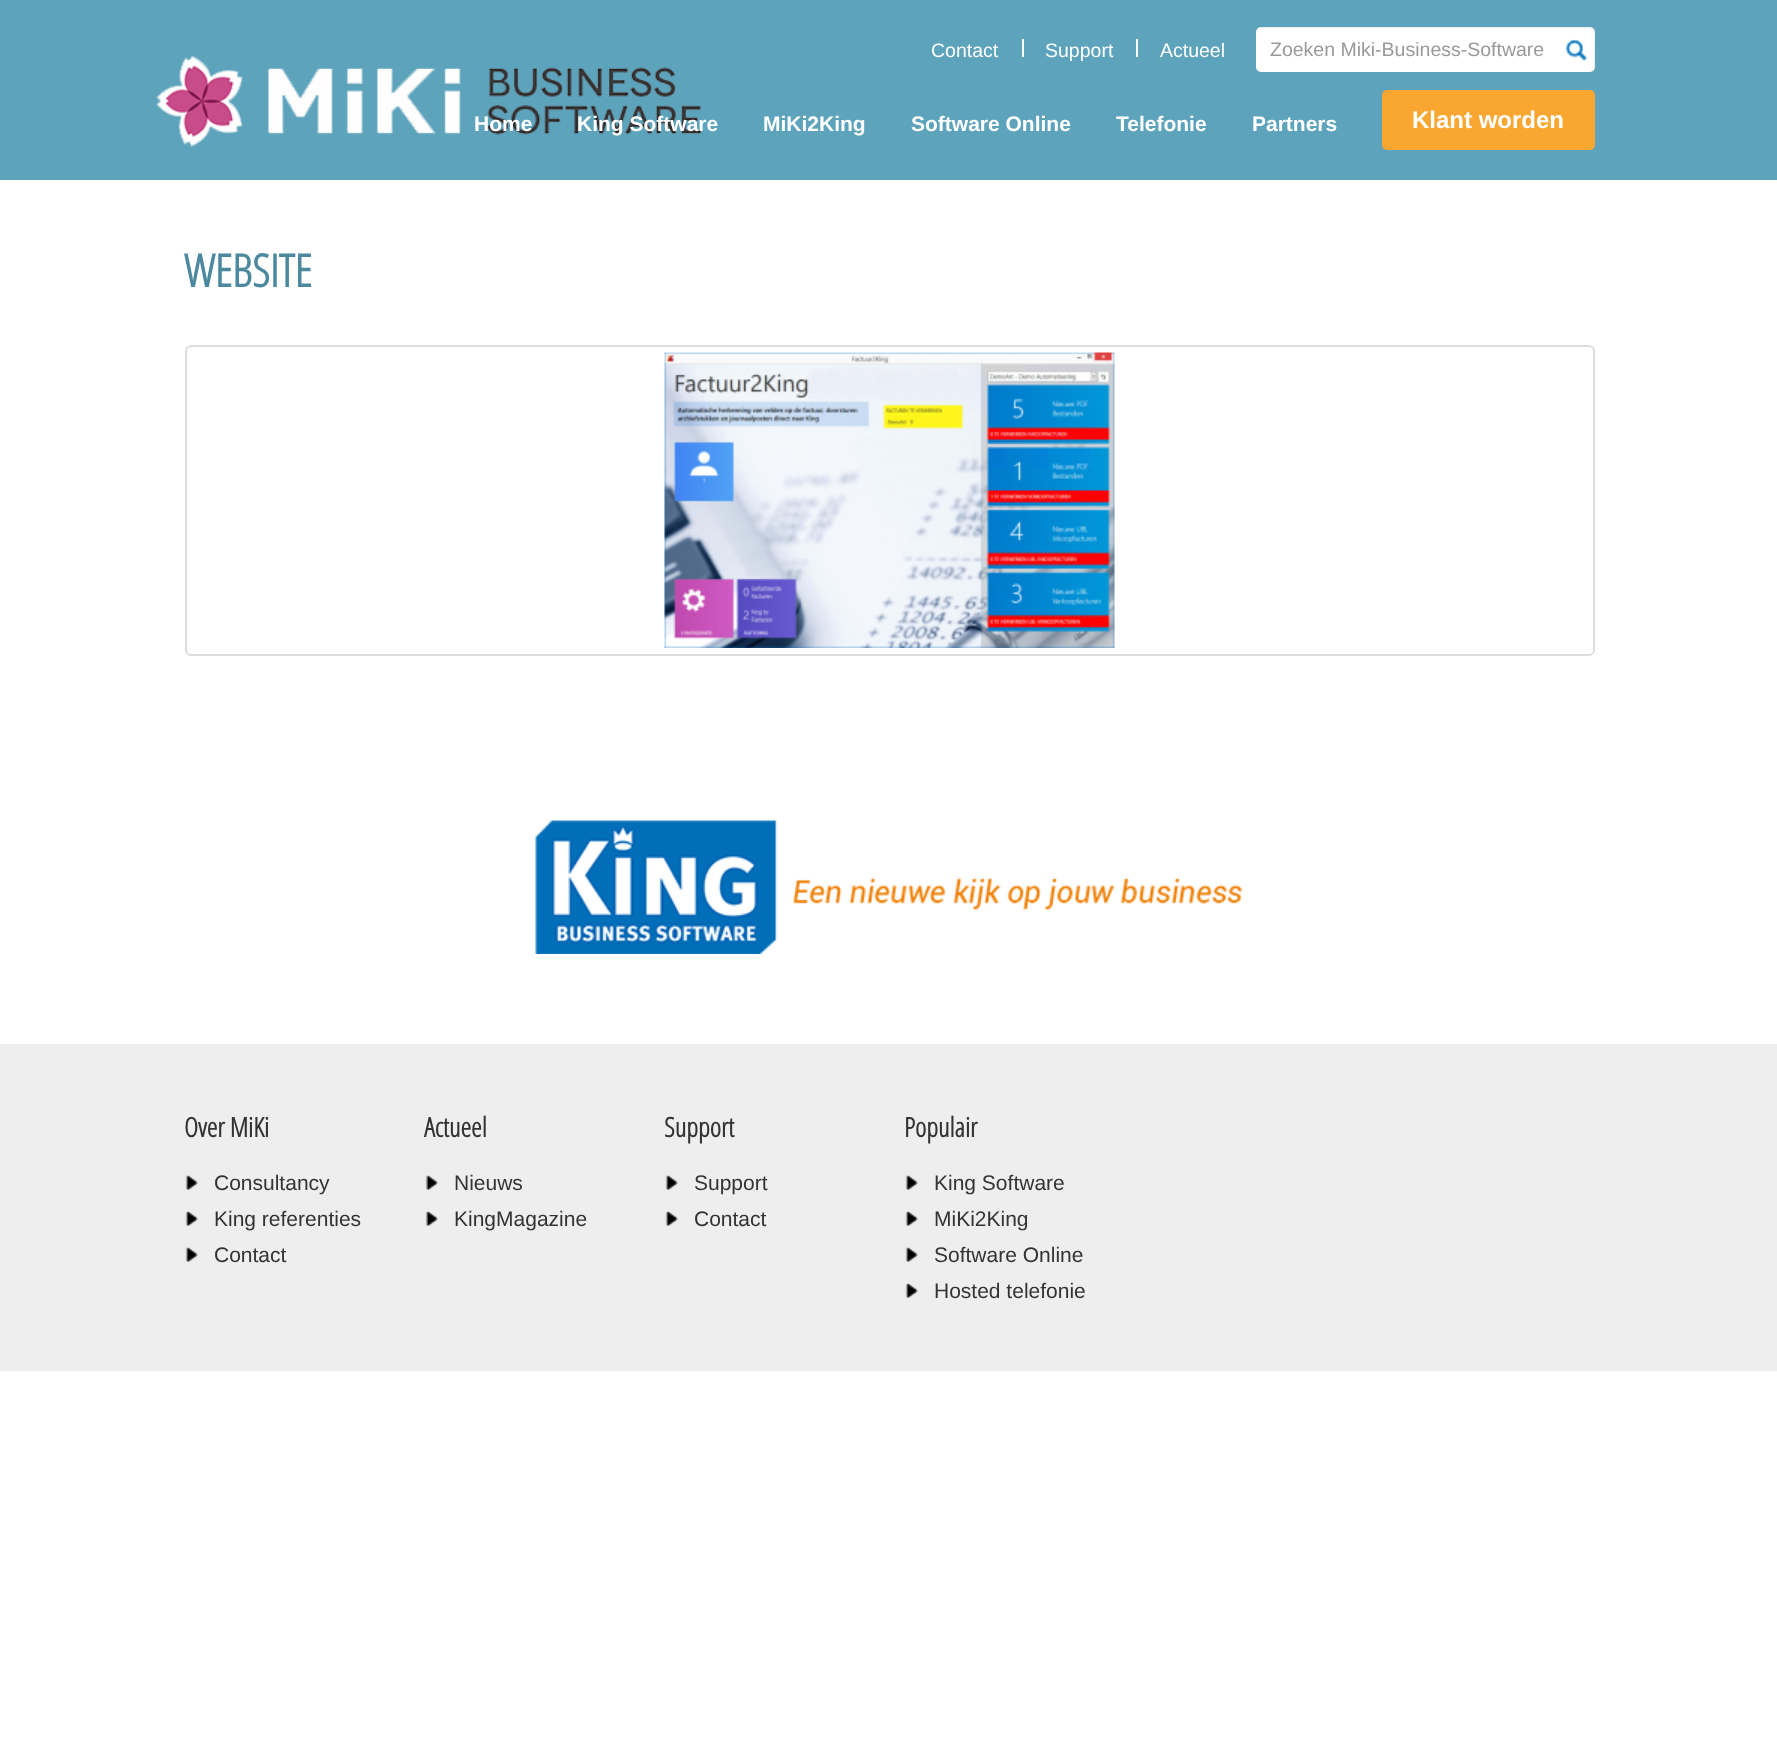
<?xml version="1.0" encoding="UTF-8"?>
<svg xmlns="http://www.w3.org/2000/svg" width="1777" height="1750">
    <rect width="100%" height="100%" fill="#FFFFFF"/>
    <rect x="0" y="0" width="1777" height="180" fill="#5DA3BC"/>
    <rect x="1256" y="27" width="339" height="45" rx="5" fill="#FFFFFF"/>
    <image x="1565" y="39" width="23" height="22" href="img_01.png"/>
    <path d="M 1260 28 H 1590 C 1596 28 1594 43 1594 45 V 70 C 1595 69 1595 68 1595 67 V 32 C 1595 29 1593 27 1590 27 H 1261 C 1258 27 1256 29 1256 32 V 33 C 1256 31 1258 28 1260 28 Z" fill="#000000" fill-opacity="0.07"/>
    <text x="1270" y="56" font-family="Liberation Sans" font-size="19.5" fill="#999999">Zoeken Miki-Business-Software</text>
    <image x="155" y="55" width="546" height="92" href="img_02.png"/>
    <text x="931" y="57" font-family="Liberation Sans" font-size="19.5" fill="#FFFFFF">Contact</text>
    <rect x="1022" y="39" width="2" height="18" fill="#FFFFFF"/>
    <text x="1045" y="57" font-family="Liberation Sans" font-size="19.5" fill="#FFFFFF">Support</text>
    <rect x="1136" y="39" width="2" height="18" fill="#FFFFFF"/>
    <text x="1160" y="57" font-family="Liberation Sans" font-size="19.5" fill="#FFFFFF">Actueel</text>
    <text x="474" y="131" font-family="Liberation Sans" font-size="21" font-weight="700" fill="#FFFFFF">Home</text>
    <text x="577" y="131" font-family="Liberation Sans" font-size="21" font-weight="700" fill="#FFFFFF">King Software</text>
    <text x="763" y="131" font-family="Liberation Sans" font-size="21" font-weight="700" fill="#FFFFFF">MiKi2King</text>
    <text x="911" y="131" font-family="Liberation Sans" font-size="21" font-weight="700" fill="#FFFFFF">Software Online</text>
    <text x="1116" y="131" font-family="Liberation Sans" font-size="21" font-weight="700" fill="#FFFFFF">Telefonie</text>
    <text x="1252" y="131" font-family="Liberation Sans" font-size="21" font-weight="700" fill="#FFFFFF">Partners</text>
    <rect x="1382" y="90" width="213" height="60" rx="5" fill="#FAA732"/>
    <text x="1412" y="128" font-family="Liberation Sans" font-size="24" font-weight="700" fill="#FFFFFF">Klant worden</text>
    <text x="184" y="287" font-family="Open Sans Condensed" font-size="45" font-weight="700" fill="#4D899E">WEBSITE</text>
    <rect x="186" y="346" width="1408" height="309" rx="5" fill="none" stroke="#DDDDDD" stroke-width="2"/>
    <image x="664" y="352" width="451" height="296" href="img_03.png"/>
    <image x="535" y="820" width="708" height="134" href="img_04.png"/>
    <rect x="0" y="1044" width="1777" height="327" fill="#EEEEEE"/>
    <text x="184" y="1137" font-family="Open Sans Condensed" font-size="27" font-weight="700" fill="#333333">Over MiKi</text>
    <image x="185" y="1175" width="14" height="15" href="img_05.png"/>
    <text x="214" y="1190" font-family="Liberation Sans" font-size="21" fill="#333333">Consultancy</text>
    <image x="185" y="1211" width="14" height="15" href="img_05.png"/>
    <text x="214" y="1226" font-family="Liberation Sans" font-size="21" fill="#333333">King referenties</text>
    <image x="185" y="1247" width="14" height="15" href="img_05.png"/>
    <text x="214" y="1262" font-family="Liberation Sans" font-size="21" fill="#333333">Contact</text>
    <text x="424" y="1137" font-family="Open Sans Condensed" font-size="27" font-weight="700" fill="#333333">Actueel</text>
    <image x="425" y="1175" width="14" height="15" href="img_06.png"/>
    <text x="454" y="1190" font-family="Liberation Sans" font-size="21" fill="#333333">Nieuws</text>
    <image x="425" y="1211" width="14" height="15" href="img_06.png"/>
    <text x="454" y="1226" font-family="Liberation Sans" font-size="21" fill="#333333">KingMagazine</text>
    <text x="664" y="1137" font-family="Open Sans Condensed" font-size="27" font-weight="700" fill="#333333">Support</text>
    <image x="665" y="1175" width="14" height="15" href="img_05.png"/>
    <text x="694" y="1190" font-family="Liberation Sans" font-size="21" fill="#333333">Support</text>
    <image x="665" y="1211" width="14" height="15" href="img_05.png"/>
    <text x="694" y="1226" font-family="Liberation Sans" font-size="21" fill="#333333">Contact</text>
    <text x="904" y="1137" font-family="Open Sans Condensed" font-size="27" font-weight="700" fill="#333333">Populair</text>
    <image x="905" y="1175" width="14" height="15" href="img_05.png"/>
    <text x="934" y="1190" font-family="Liberation Sans" font-size="21" fill="#333333">King Software</text>
    <image x="905" y="1211" width="14" height="15" href="img_05.png"/>
    <text x="934" y="1226" font-family="Liberation Sans" font-size="21" fill="#333333">MiKi2King</text>
    <image x="905" y="1247" width="14" height="15" href="img_05.png"/>
    <text x="934" y="1262" font-family="Liberation Sans" font-size="21" fill="#333333">Software Online</text>
    <image x="905" y="1283" width="14" height="15" href="img_05.png"/>
    <text x="934" y="1298" font-family="Liberation Sans" font-size="21" fill="#333333">Hosted telefonie</text>
</svg>
